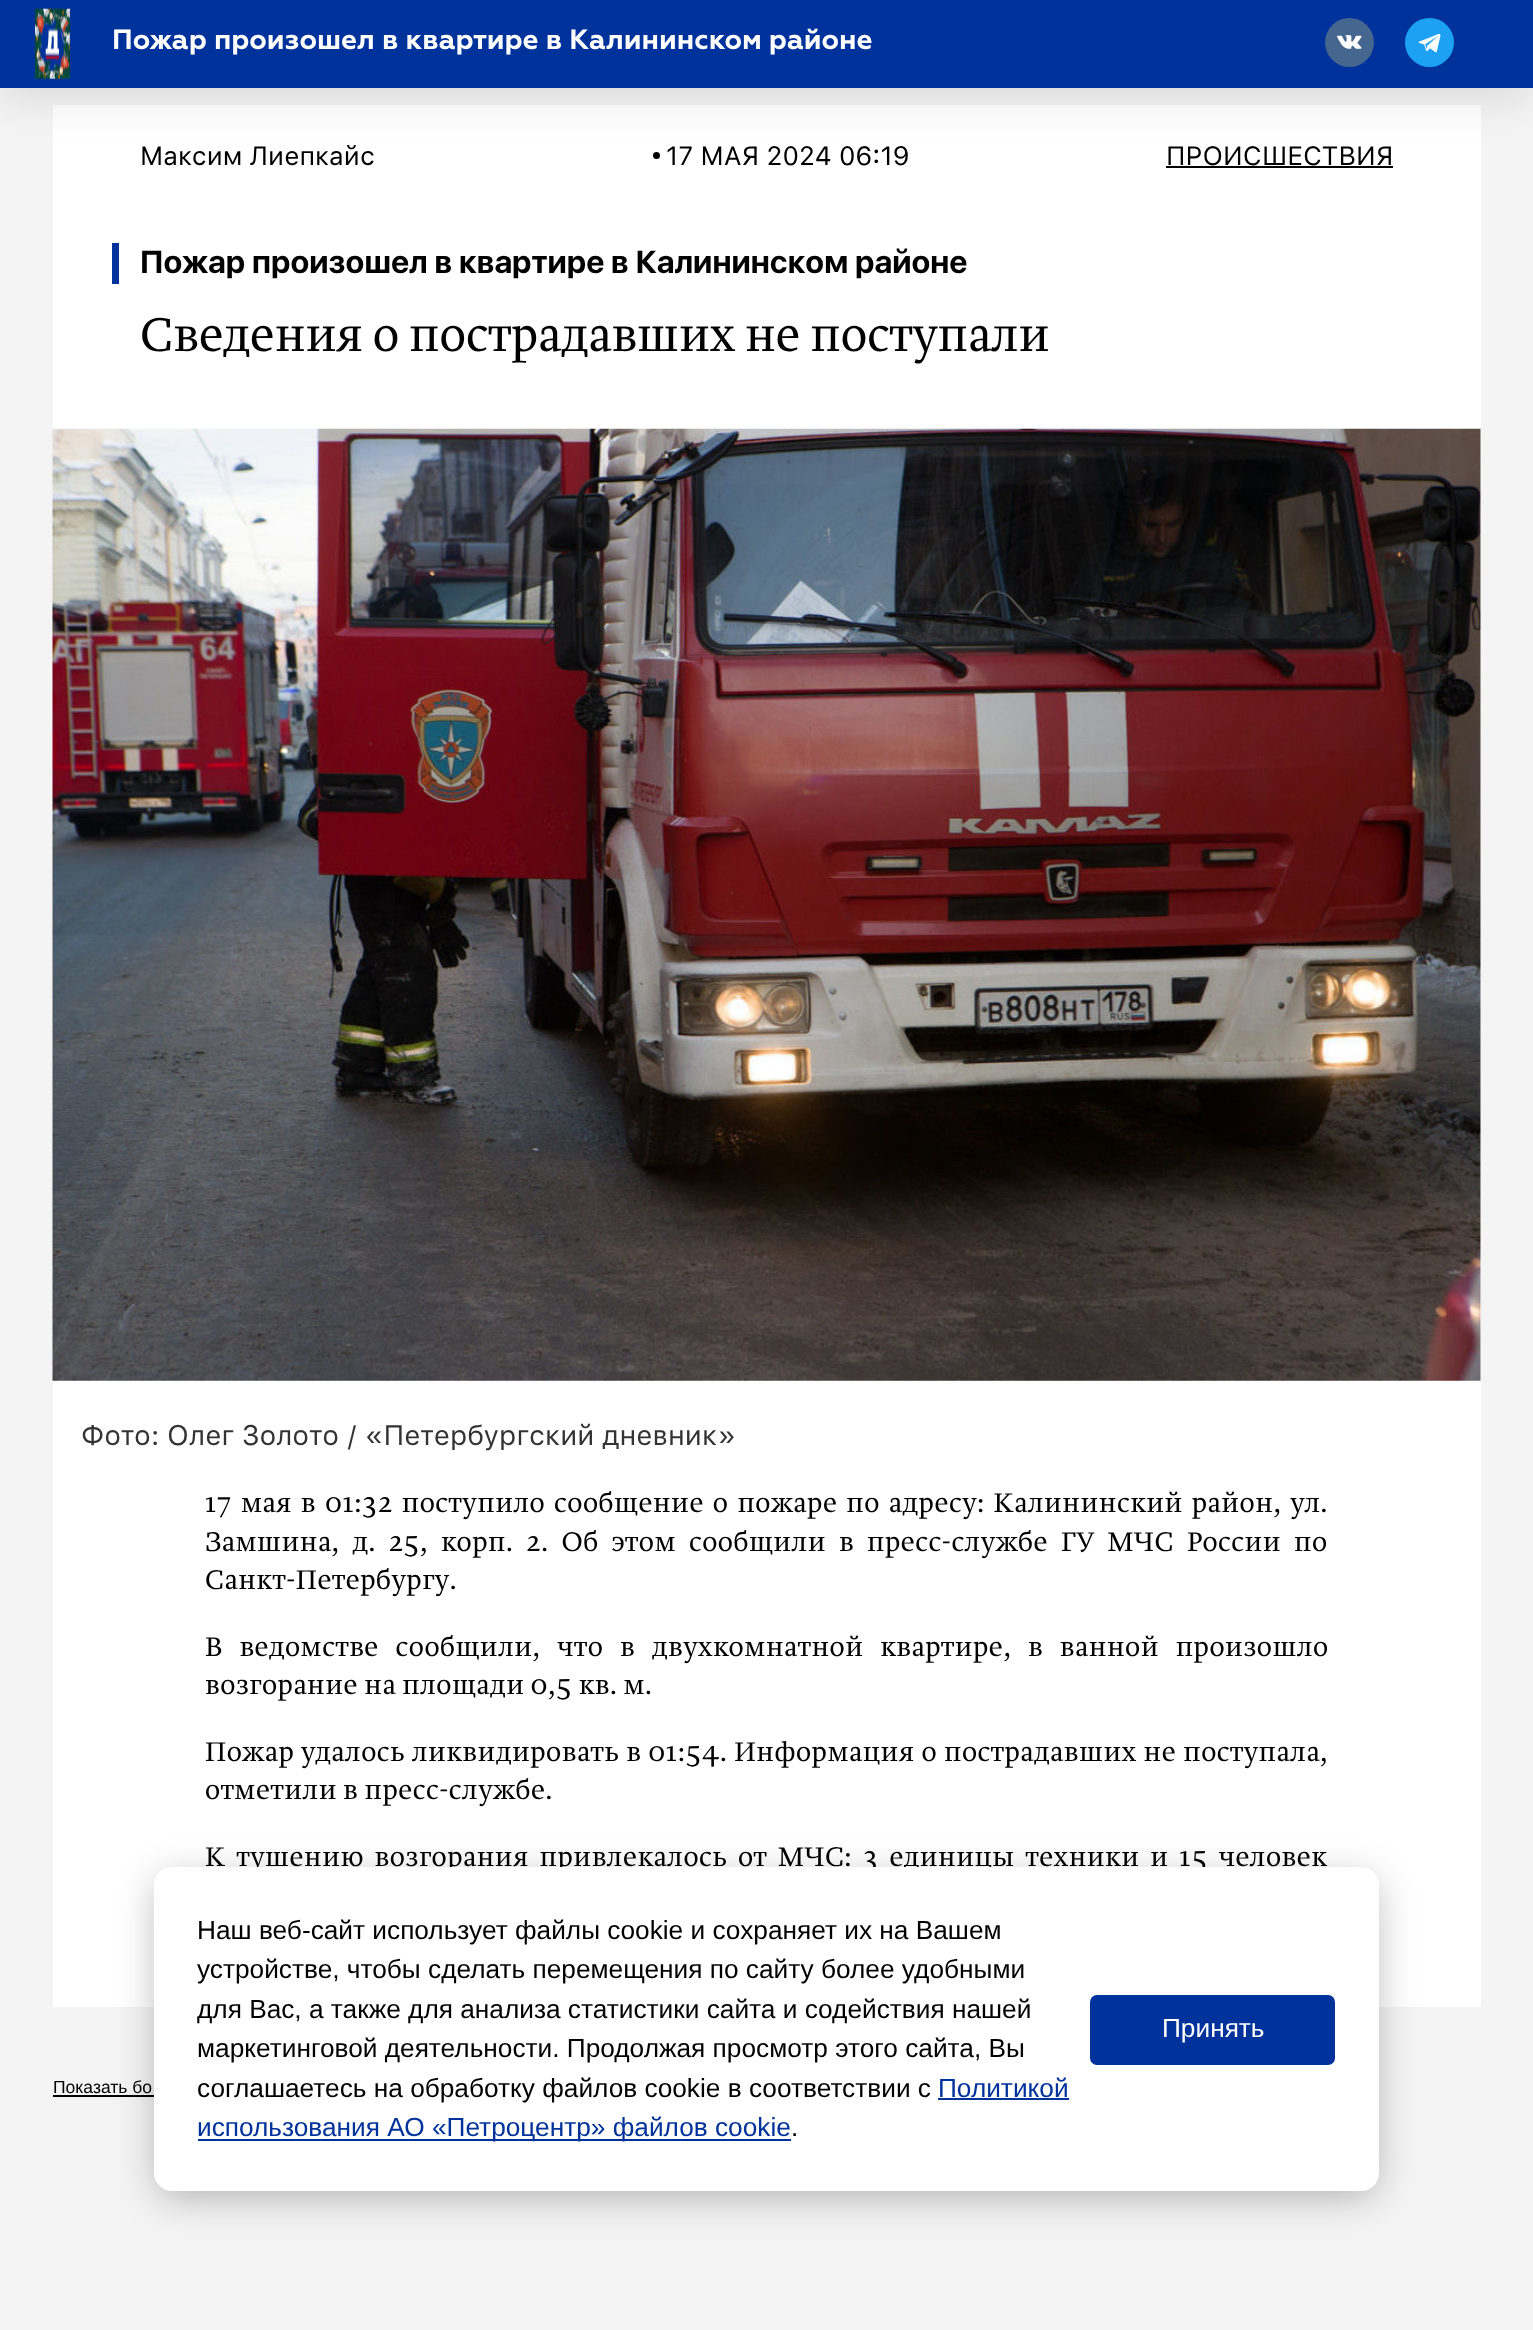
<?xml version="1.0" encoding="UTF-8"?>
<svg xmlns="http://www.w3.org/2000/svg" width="1533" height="2330">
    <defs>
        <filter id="blur1" x="-50%" y="-200%" width="200%" height="500%"><feGaussianBlur stdDeviation="21"/></filter>
        <filter id="blur2" x="-50%" y="-200%" width="200%" height="500%"><feGaussianBlur stdDeviation="20"/></filter>
    </defs>
    <rect width="100%" height="100%" fill="#F4F4F4"/>
    <rect x="53" y="105" width="1428" height="1902" fill="#FFFFFF"/>
    <circle cx="656.5" cy="155.5" r="3.5" fill="#000000"/>
    <rect x="0" y="12" width="1533" height="88" fill="#000000" fill-opacity="0.1" filter="url(#blur1)"/>
    <rect x="0" y="0" width="1533" height="88" fill="#00329C"/>
    <image x="35" y="8" width="35" height="71" href="img_01.png"/>
    <text x="112" y="49" font-family="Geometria" font-size="28" font-weight="700" fill="#FFFFFF">Пожар произошел в квартире в Калининском районе</text>
    <circle cx="1349.5" cy="42.5" r="24.5" fill="#45668E"/>
    <image x="1337" y="35" width="25" height="14" href="img_02.png"/>
    <circle cx="1429.5" cy="42.5" r="24.5" fill="#1DA1F2"/>
    <image x="1418" y="33" width="23" height="20" href="img_03.png"/>
    <text x="140" y="165" font-family="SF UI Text" font-size="26.25" fill="#000000">Максим Лиепкайс</text>
    <text x="666" y="165" font-family="SF UI Text" font-size="26.25" fill="#000000">17 МАЯ 2024 06:19</text>
    <text x="1166" y="165" font-family="SF UI Text" font-size="26.25" fill="#000000">ПРОИСШЕСТВИЯ</text>
    <rect x="1166" y="166" width="227" height="2" fill="#000000"/>
    <rect x="112" y="243" width="7" height="41" fill="#00329C"/>
    <text x="140" y="273" font-family="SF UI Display" font-size="31.5" font-weight="700" fill="#000000">Пожар произошел в квартире в Калининском районе</text>
    <text x="140" y="351" font-family="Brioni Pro" font-size="49" font-weight="300" fill="#000000">Сведения о пострадавших не поступали</text>
    <image x="52" y="428" width="1429" height="953" href="img_04.png"/>
    <text x="81" y="1445" font-family="SF UI Text" font-size="28" fill="#333333">Фото: Олег Золото / «Петербургский дневник»</text>
    <text font-family="Brioni Pro" font-size="28" font-weight="300" letter-spacing="0.53" fill="#000000">
        <tspan x="205" y="1512" word-spacing="2.75">17 мая в 01:32 поступило сообщение о пожаре по адресу: Калининский район, ул.</tspan>
        <tspan x="205" y="1551" word-spacing="6.75">Замшина, д. 25, корп. 2. Об этом сообщили в пресс-службе ГУ МЧС России по</tspan>
        <tspan x="205" y="1589">Санкт-Петербургу.</tspan>
    </text>
    <text font-family="Brioni Pro" font-size="28" font-weight="300" letter-spacing="0.53" fill="#000000">
        <tspan x="205" y="1656" word-spacing="10.5">В ведомстве сообщили, что в двухкомнатной квартире, в ванной произошло</tspan>
        <tspan x="205" y="1694">возгорание на площади 0,5 кв. м.</tspan>
    </text>
    <text font-family="Brioni Pro" font-size="28" font-weight="300" letter-spacing="0.53" fill="#000000">
        <tspan x="205" y="1761" word-spacing="0.75">Пожар удалось ликвидировать в 01:54. Информация о пострадавших не поступала,</tspan>
        <tspan x="205" y="1799">отметили в пресс-службе.</tspan>
    </text>
    <text x="205" y="1866" word-spacing="4.6" font-family="Brioni Pro" font-size="28" font-weight="300" letter-spacing="0.53" fill="#000000">К тушению возгорания привлекалось от МЧС: 3 единицы техники и 15 человек</text>
    <text x="53" y="2093" font-family="Liberation Sans" font-size="17.5" fill="#000000">Показать бо</text>
    <rect x="53" y="2095" width="101" height="2" fill="#000000"/>
    <rect x="159" y="1881" width="1215" height="314" rx="12" fill="#000000" fill-opacity="0.3" filter="url(#blur2)"/>
    <rect x="154" y="1867" width="1225" height="324" rx="18" fill="#FFFFFF"/>
    <text font-family="Liberation Sans" font-size="26.25" fill="#000000">
        <tspan x="197" y="1939">Наш веб-сайт использует файлы cookie и сохраняет их на Вашем</tspan>
        <tspan x="197" y="1978">устройстве, чтобы сделать перемещения по сайту более удобными</tspan>
        <tspan x="197" y="2018">для Вас, а также для анализа статистики сайта и содействия нашей</tspan>
        <tspan x="197" y="2057">маркетинговой деятельности. Продолжая просмотр этого сайта, Вы</tspan>
        <tspan x="197" y="2097">соглашаетесь на обработку файлов cookie в соответствии с</tspan>
    </text>
    <text x="938" y="2097" font-family="Liberation Sans" font-size="26.25" fill="#00329C">Политикой</text>
    <rect x="938" y="2098" width="131" height="2" fill="#00329C"/>
    <rect x="198" y="2139" width="593" height="2" fill="#00329C"/>
    <text x="197" y="2136" font-family="Liberation Sans" font-size="26.25" fill="#00329C">использования АО «Петроцентр» файлов cookie</text>
    <text x="791" y="2136" font-family="Liberation Sans" font-size="26.25" fill="#000000">.</text>
    <rect x="1091" y="1996" width="243" height="68" rx="6" fill="#00329C" stroke="#00329C" stroke-width="2"/>
    <text x="1162" y="2037" font-family="Liberation Sans" font-size="26.25" fill="#FFFFFF">Принять</text>
</svg>
